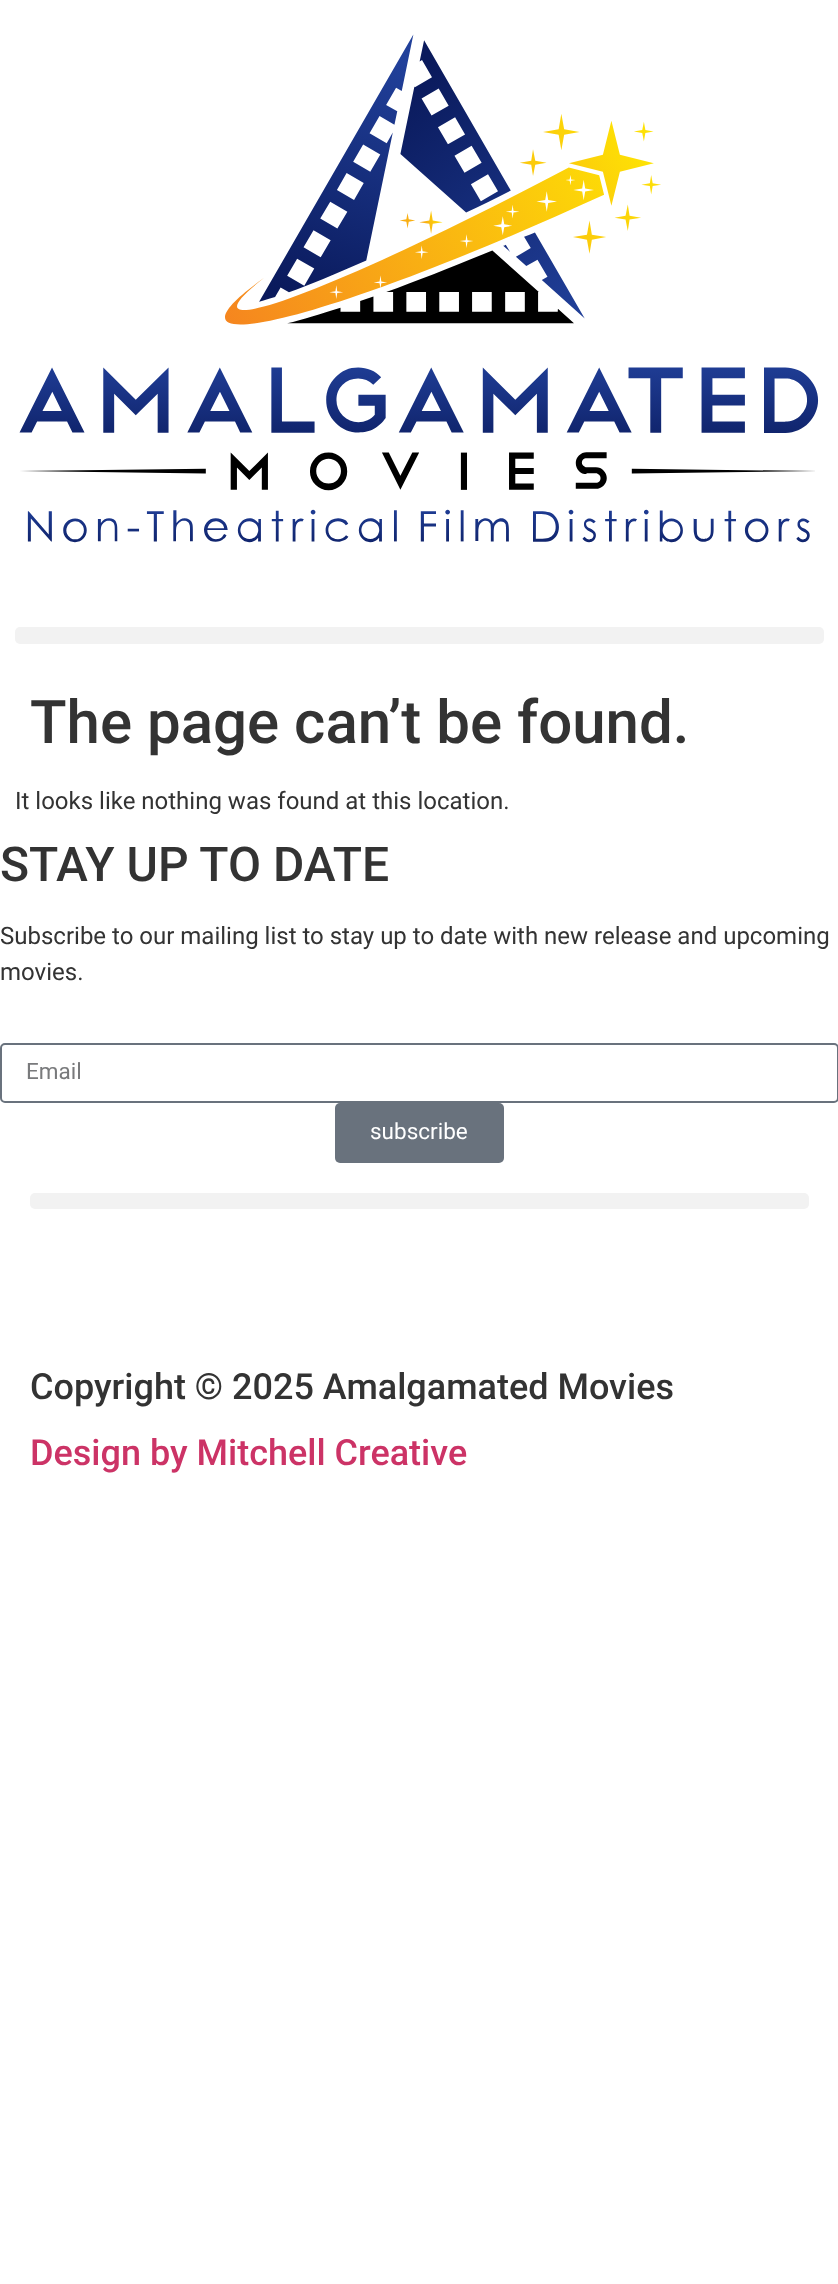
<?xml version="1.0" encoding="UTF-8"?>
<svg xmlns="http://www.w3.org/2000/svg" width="838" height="2284">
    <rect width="100%" height="100%" fill="#FFFFFF"/>
    <image x="19" y="34" width="800" height="509" href="img_01.png"/>
    <rect x="15" y="627" width="809" height="17" rx="5" fill="#F2F2F2"/>
    <text x="30" y="743" font-family="Roboto" font-size="60" font-weight="500" fill="#333333">The page can’t be found.</text>
    <text x="15" y="809" font-family="Roboto" font-size="24" fill="#333333">It looks like nothing was found at this location.</text>
    <text x="0" y="881" font-family="Roboto" font-size="48" font-weight="500" fill="#333333">STAY UP TO DATE</text>
    <text font-family="Roboto" font-size="24" fill="#333333">
        <tspan x="0" y="944">Subscribe to our mailing list to stay up to date with new release and upcoming</tspan>
        <tspan x="0" y="980">movies.</tspan>
    </text>
    <rect x="1" y="1044" width="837" height="58" rx="4" fill="none" stroke="#69727D" stroke-width="2"/>
    <text x="26" y="1079" font-family="Roboto" font-size="22.5" fill="#797A7C">Email</text>
    <rect x="335" y="1103" width="169" height="60" rx="5" fill="#69727D"/>
    <text x="370" y="1139" font-family="Roboto" font-size="22.5" fill="#FFFFFF">subscribe</text>
    <rect x="30" y="1193" width="779" height="16" rx="5" fill="#F2F2F2"/>
    <text x="30" y="1399" font-family="Roboto" font-size="36" font-weight="500" fill="#333333">Copyright © 2025 Amalgamated Movies</text>
    <text x="30" y="1465" font-family="Roboto" font-size="36" font-weight="500" fill="#CC3366">Design by Mitchell Creative</text>
</svg>
